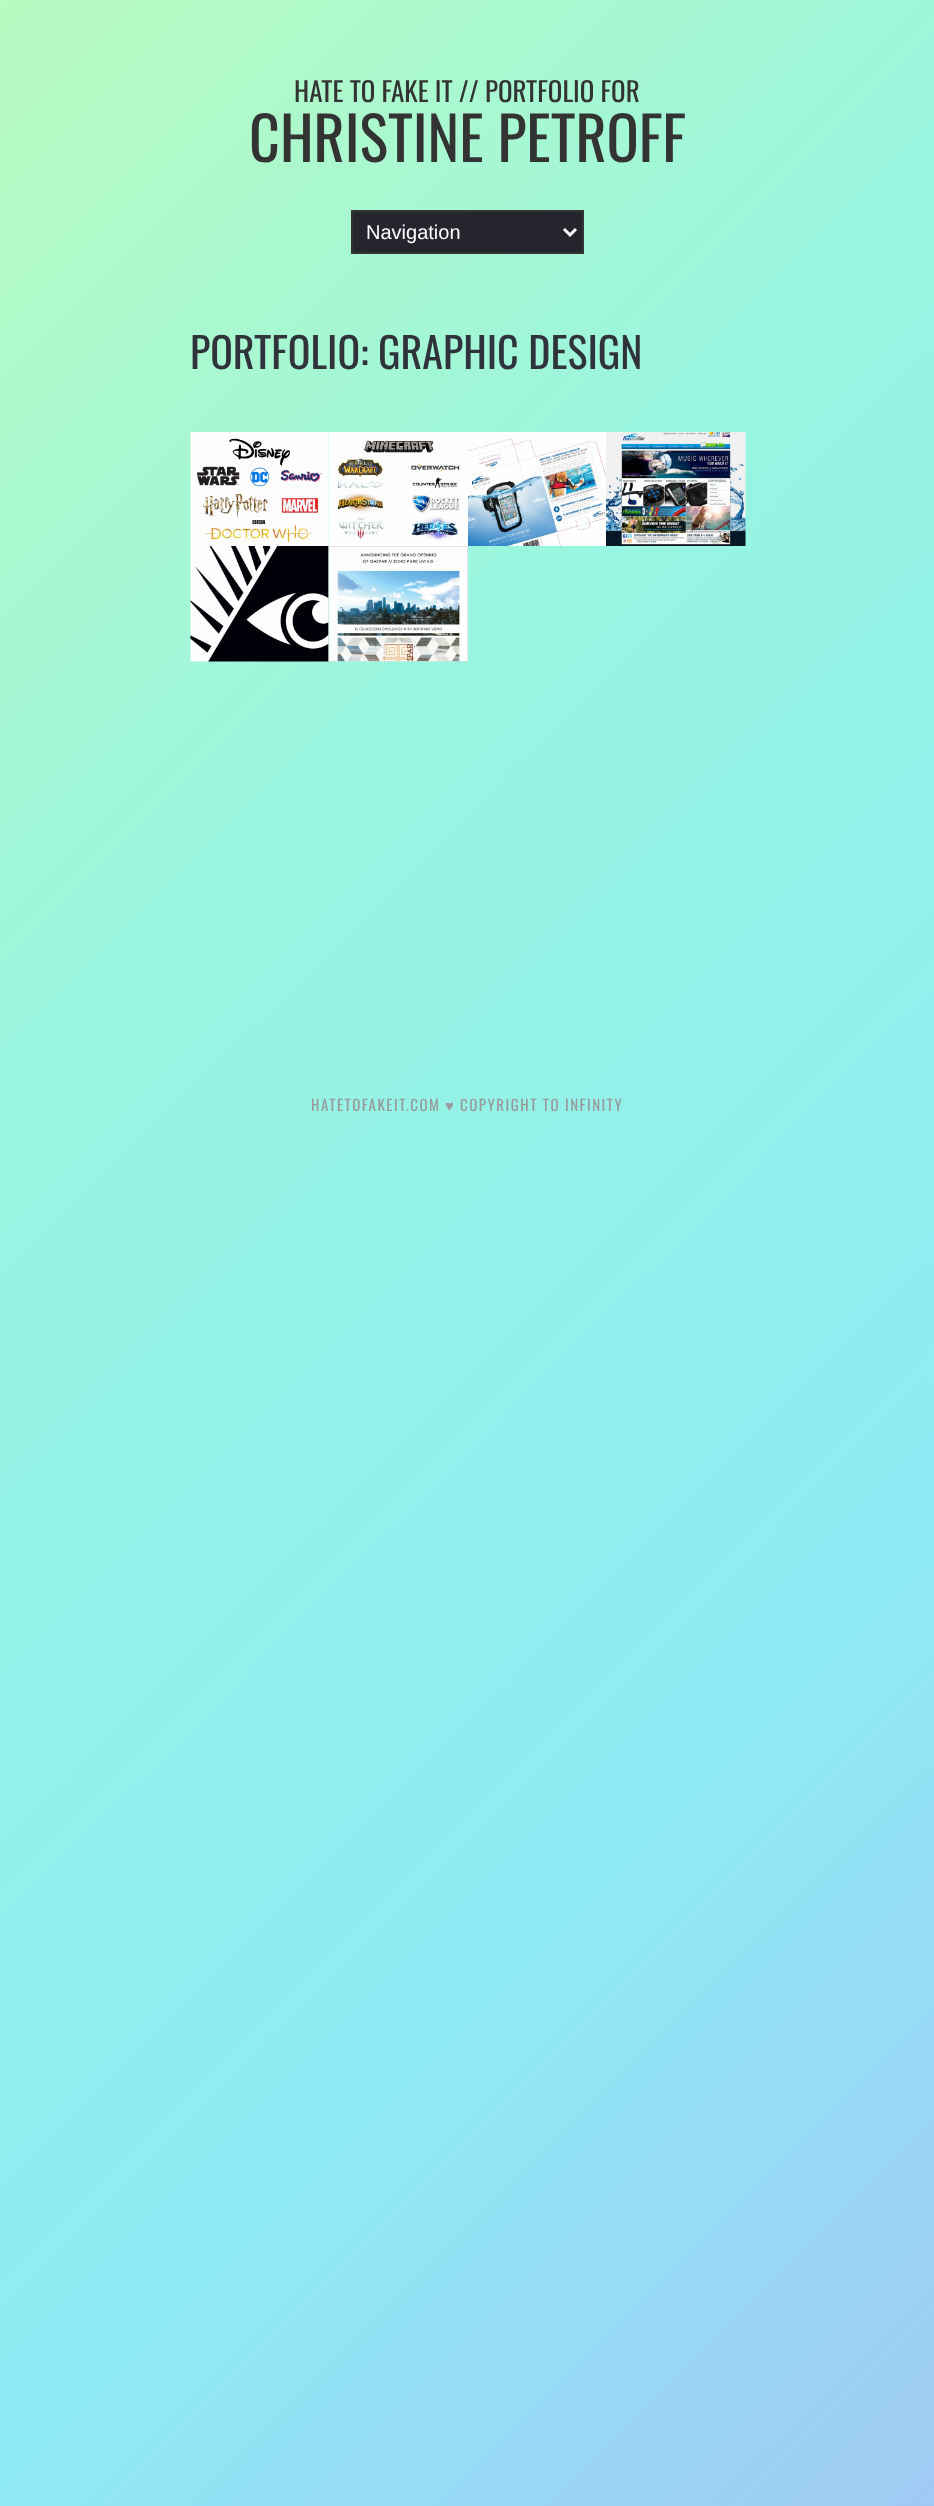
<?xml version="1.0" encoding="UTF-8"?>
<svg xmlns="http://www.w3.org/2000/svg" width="934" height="2506">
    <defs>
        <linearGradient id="g1" gradientUnits="userSpaceOnUse" x1="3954" y1="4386" x2="-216" y2="216"><stop offset="0" stop-color="#FBF8CC"/><stop offset="0.14" stop-color="#FFCFD2"/><stop offset="0.29" stop-color="#F1C0E8"/><stop offset="0.43" stop-color="#CFBAF0"/><stop offset="0.57" stop-color="#A3C4F3"/><stop offset="0.71" stop-color="#8EECF5"/><stop offset="0.86" stop-color="#98F5E1"/><stop offset="1" stop-color="#B9FBC0"/></linearGradient>
    </defs>
    <rect width="100%" height="100%" fill="#FFFFFF"/>
    <rect x="0" y="0" width="934" height="2506" fill="url(#g1)"/>
    <text x="294" y="102" font-family="Oswald" font-size="27" fill="#333333">HATE TO FAKE IT // PORTFOLIO FOR</text>
    <text x="249" y="162" font-family="Oswald" font-size="60" fill="#333333">CHRISTINE PETROFF</text>
    <rect x="352" y="211" width="231" height="42" fill="#24252D" stroke="#333333" stroke-width="2"/>
    <path d="M 564 229 L 570 235 L 576 229" fill="none" stroke="#FFFFFF" stroke-width="3"/>
    <text x="366" y="239" font-family="Liberation Sans" font-size="20" fill="#FFFFFF">Navigation</text>
    <text x="190" y="369" font-family="Oswald" font-size="42" fill="#30333B">PORTFOLIO: GRAPHIC DESIGN</text>
    <image x="190" y="432" width="139" height="114" href="img_01.png"/>
    <image x="328" y="432" width="140" height="114" href="img_02.png"/>
    <image x="468" y="432" width="138" height="114" href="img_03.png"/>
    <image x="606" y="432" width="140" height="114" href="img_04.png"/>
    <image x="190" y="546" width="139" height="116" href="img_05.png"/>
    <image x="328" y="546" width="140" height="116" href="img_06.png"/>
    <text x="311" y="1111" font-family="Oswald" font-size="15" letter-spacing="1.5" fill="#999999">HATETOFAKEIT.COM</text>
    <text x="445" y="1111" font-family="Liberation Serif" font-size="15" letter-spacing="1.5" fill="#999999">♥</text>
    <text x="460" y="1111" font-family="Oswald" font-size="15" letter-spacing="1.5" fill="#999999">COPYRIGHT TO INFINITY</text>
</svg>
